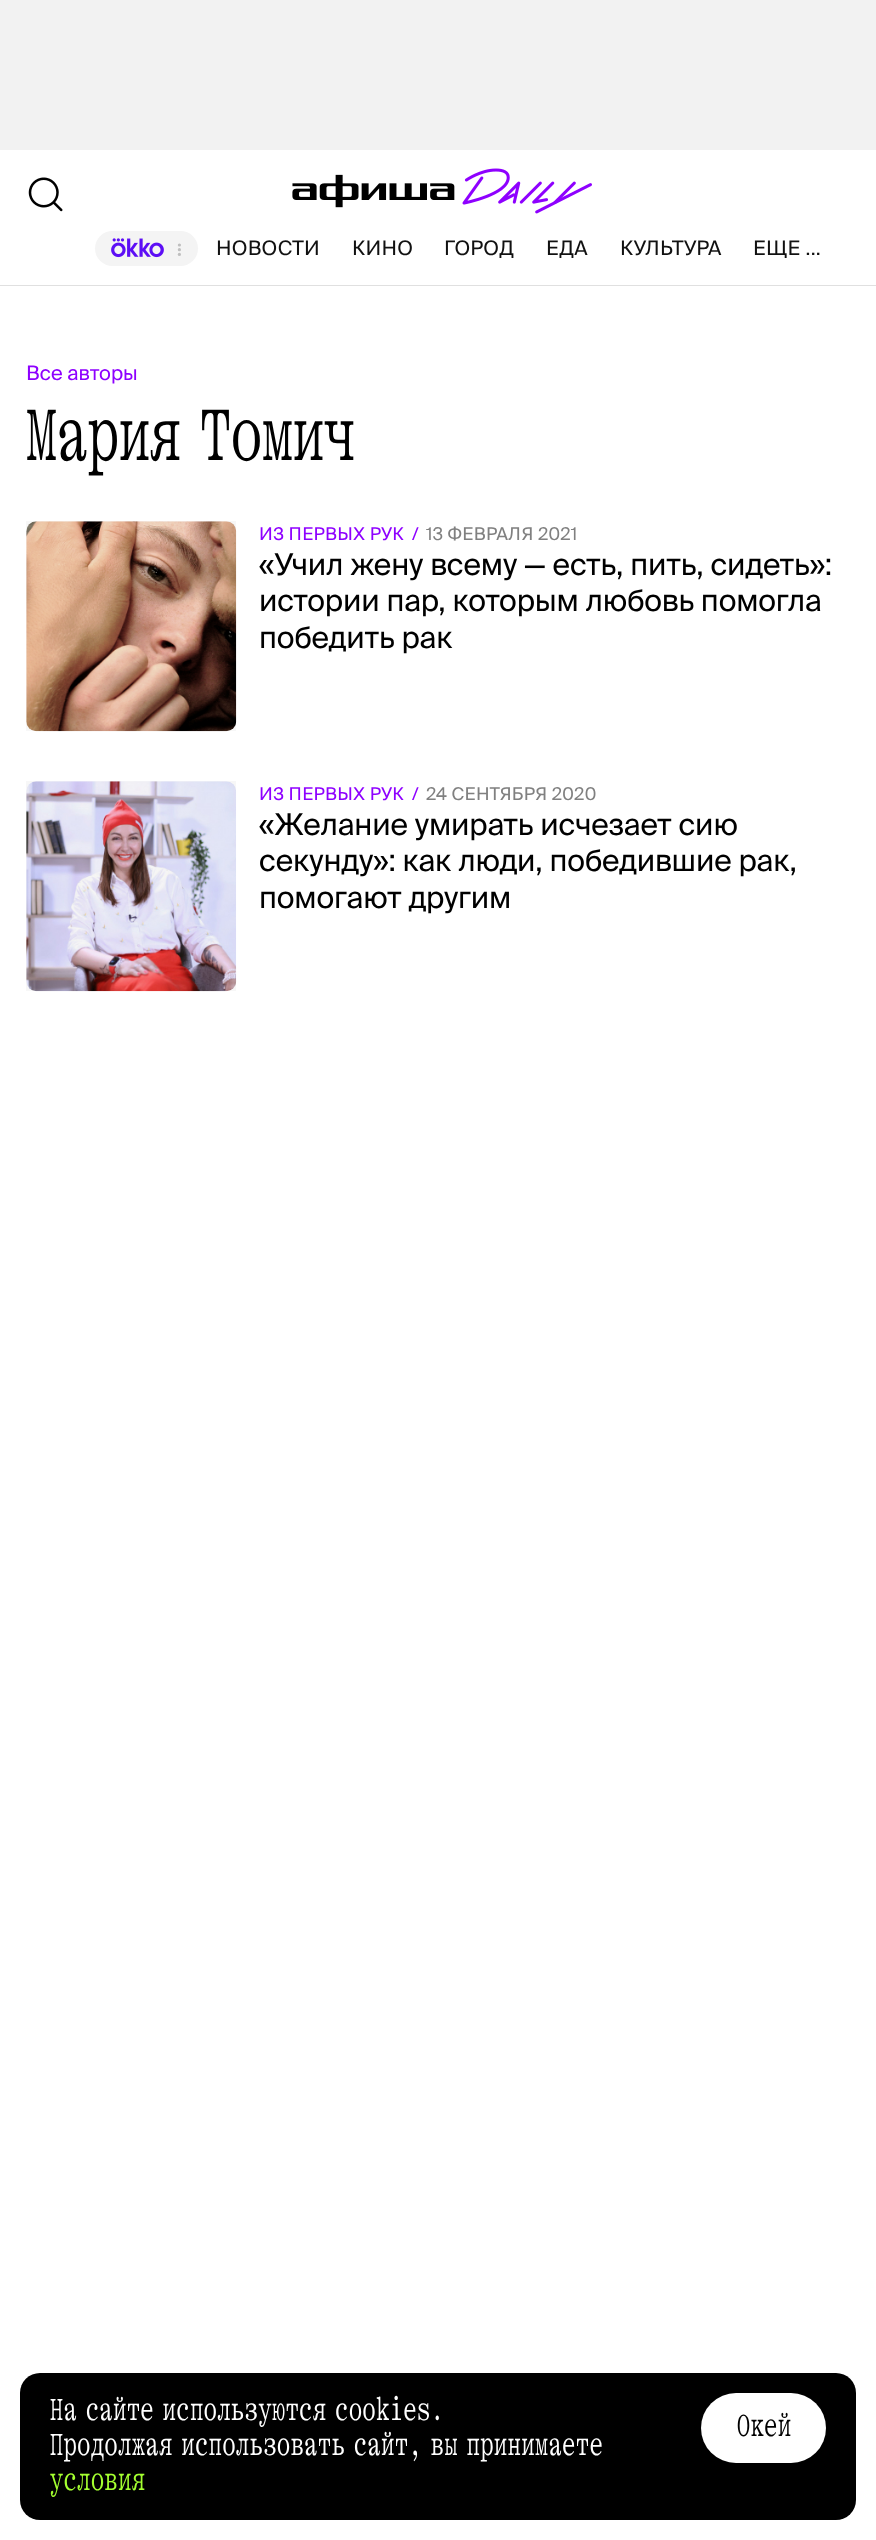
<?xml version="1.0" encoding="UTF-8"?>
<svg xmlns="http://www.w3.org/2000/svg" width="876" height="2540">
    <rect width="100%" height="100%" fill="#FFFFFF"/>
    <rect x="0" y="0" width="876" height="150" fill="#F2F2F2"/>
    <image x="292" y="168" width="300" height="46" href="img_01.png"/>
    <rect x="0" y="285" width="876" height="1" fill="#E0E0E0"/>
    <image x="28" y="177" width="35" height="35" href="img_02.png"/>
    <rect x="95" y="231" width="103" height="35" rx="17.5" fill="#F4F4F4"/>
    <image x="111" y="238" width="53" height="20" href="img_03.png"/>
    <circle cx="179.4" cy="245" r="1.6" fill="#BFBFBF"/>
    <circle cx="179.4" cy="249.7" r="1.6" fill="#BFBFBF"/>
    <circle cx="179.4" cy="254.4" r="1.6" fill="#BFBFBF"/>
    <text x="216" y="255" font-family="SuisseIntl" font-size="20" letter-spacing="0.25" fill="#111111">НОВОСТИ</text>
    <text x="352" y="255" font-family="SuisseIntl" font-size="20" letter-spacing="0.25" fill="#111111">КИНО</text>
    <text x="444" y="255" font-family="SuisseIntl" font-size="20" letter-spacing="0.25" fill="#111111">ГОРОД</text>
    <text x="546" y="255" font-family="SuisseIntl" font-size="20" letter-spacing="0.25" fill="#111111">ЕДА</text>
    <text x="620" y="255" font-family="SuisseIntl" font-size="20" letter-spacing="0.25" fill="#111111">КУЛЬТУРА</text>
    <text x="753" y="255" font-family="SuisseIntl" font-size="20" letter-spacing="0.25" fill="#111111">ЕЩЕ ...</text>
    <text x="26" y="380" font-family="SuisseIntl" font-size="20" fill="#8E00FF">Все авторы</text>
    <text x="26" y="460" word-spacing="-12" font-family="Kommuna" font-size="77.5" fill="#000000">Мария Томич</text>
    <image x="26" y="521" width="211" height="211" href="img_04.png"/>
    <rect x="26" y="521" width="210" height="210" fill="#000000" fill-opacity="0.03"/>
    <text x="259" y="540" font-family="SuisseIntl" font-size="17.5" letter-spacing="0.25" fill="#8E00FF">ИЗ ПЕРВЫХ РУК</text>
    <text x="412" y="540" font-family="SuisseIntl" font-size="17.5" letter-spacing="0.25" fill="#8E00FF">/</text>
    <text x="426" y="540" font-family="SuisseIntl" font-size="17.5" letter-spacing="0.25" fill="#808080">13 ФЕВРАЛЯ 2021</text>
    <text font-family="SuisseIntl" font-size="30" letter-spacing="-0.15" fill="#000000">
        <tspan x="259" y="575">«Учил жену всему — есть, пить, сидеть»:</tspan>
        <tspan x="259" y="611">истории пар, которым любовь помогла</tspan>
        <tspan x="259" y="648">победить рак</tspan>
    </text>
    <image x="26" y="781" width="211" height="211" href="img_05.png"/>
    <rect x="26" y="781" width="210" height="210" fill="#000000" fill-opacity="0.03"/>
    <text x="259" y="800" font-family="SuisseIntl" font-size="17.5" letter-spacing="0.25" fill="#8E00FF">ИЗ ПЕРВЫХ РУК</text>
    <text x="412" y="800" font-family="SuisseIntl" font-size="17.5" letter-spacing="0.25" fill="#8E00FF">/</text>
    <text x="426" y="800" font-family="SuisseIntl" font-size="17.5" letter-spacing="0.25" fill="#808080">24 СЕНТЯБРЯ 2020</text>
    <text font-family="SuisseIntl" font-size="30" letter-spacing="-0.15" fill="#000000">
        <tspan x="259" y="835">«Желание умирать исчезает сию</tspan>
        <tspan x="259" y="871">секунду»: как люди, победившие рак,</tspan>
        <tspan x="259" y="908">помогают другим</tspan>
    </text>
    <rect x="20" y="2373" width="836" height="147" rx="20" fill="#000000"/>
    <text font-family="Kommuna" font-size="32.5" letter-spacing="0.65" fill="#FFFFFF">
        <tspan x="50" y="2420" word-spacing="-5">На сайте используются cookies.</tspan>
        <tspan x="50" y="2455" word-spacing="-5">Продолжая использовать сайт, вы принимаете</tspan>
    </text>
    <text x="50" y="2490" font-family="Kommuna" font-size="32.5" letter-spacing="0.65" fill="#A4FF30">условия</text>
    <rect x="701" y="2393" width="125" height="70" rx="35" fill="#FFFFFF"/>
    <text x="737" y="2436" font-family="Kommuna" font-size="32.5" letter-spacing="0.65" fill="#000000">Окей</text>
</svg>
